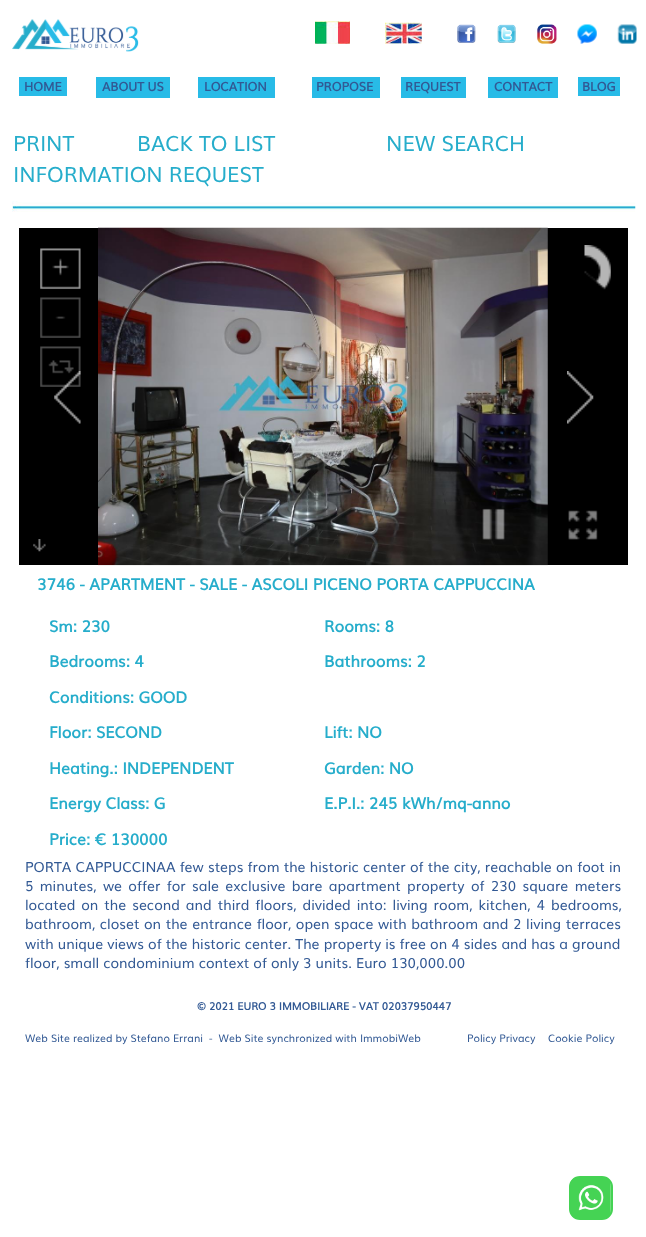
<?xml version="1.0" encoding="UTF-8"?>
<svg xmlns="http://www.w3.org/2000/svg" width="646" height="1237">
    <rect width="100%" height="100%" fill="#FFFFFF"/>
    <image x="12" y="19" width="127" height="33" href="img_01.png"/>
    <image x="315" y="21" width="35" height="23" href="img_02.png"/>
    <image x="385" y="22" width="37" height="22" href="img_03.png"/>
    <image x="457" y="24" width="19" height="19" href="img_04.png"/>
    <image x="497" y="24" width="19" height="19" href="img_05.png"/>
    <image x="537" y="24" width="20" height="20" href="img_06.png"/>
    <image x="577" y="24" width="20" height="20" href="img_07.png"/>
    <image x="617" y="24" width="20" height="20" href="img_08.png"/>
    <rect x="19" y="77" width="48" height="19" fill="#28BBE7"/>
    <text x="24" y="91" font-family="Muli" font-size="12.25" font-weight="700" fill="#325994">HOME</text>
    <rect x="96" y="77" width="74" height="21" fill="#28BBE7"/>
    <text x="102" y="91" font-family="Muli" font-size="12.25" font-weight="700" fill="#325994">ABOUT US</text>
    <rect x="198" y="77" width="77" height="21" fill="#28BBE7"/>
    <text x="204" y="91" font-family="Muli" font-size="12.25" font-weight="700" fill="#325994">LOCATION</text>
    <rect x="312" y="77" width="68" height="21" fill="#28BBE7"/>
    <text x="316" y="91" font-family="Muli" font-size="12.25" font-weight="700" fill="#325994">PROPOSE</text>
    <rect x="401" y="77" width="65" height="21" fill="#28BBE7"/>
    <text x="405" y="91" font-family="Muli" font-size="12.25" font-weight="700" fill="#325994">REQUEST</text>
    <rect x="488" y="77" width="70" height="21" fill="#28BBE7"/>
    <text x="494" y="91" font-family="Muli" font-size="12.25" font-weight="700" fill="#325994">CONTACT</text>
    <rect x="578" y="77" width="42" height="19" fill="#28BBE7"/>
    <text x="582" y="91" font-family="Muli" font-size="12.25" font-weight="700" fill="#325994">BLOG</text>
    <text x="13" y="151" font-family="Muli" font-size="21" fill="#26ADCB">PRINT</text>
    <text x="137" y="151" font-family="Muli" font-size="21" fill="#26ADCB">BACK TO LIST</text>
    <text x="386" y="151" font-family="Muli" font-size="21" fill="#26ADCB">NEW SEARCH</text>
    <text x="13" y="182" font-family="Muli" font-size="21" fill="#26ADCB">INFORMATION REQUEST</text>
    <image x="12" y="201" width="624" height="11" href="img_09.png"/>
    <rect x="19" y="228" width="609" height="337" fill="#000000"/>
    <image x="40" y="248" width="41" height="41" href="img_10.png"/>
    <image x="40" y="297" width="41" height="41" href="img_11.png"/>
    <image x="54" y="371" width="27" height="53" href="img_15.png"/>
    <image x="40" y="346" width="41" height="41" href="img_12.png"/>
    <image x="98" y="227" width="450" height="339" href="img_13.png"/>
    <image x="584" y="245" width="27" height="45" href="img_14.png"/>
    <image x="567" y="371" width="27" height="53" href="img_16.png"/>
    <image x="482" y="508" width="23" height="32" href="img_17.png"/>
    <image x="568" y="510" width="30" height="30" href="img_18.png"/>
    <image x="33" y="539" width="13" height="13" href="img_19.png"/>
    <text x="37" y="590" font-family="Muli" font-size="15.75" font-weight="700" fill="#26ADCB">3746 - APARTMENT - SALE - ASCOLI PICENO PORTA CAPPUCCINA</text>
    <text x="49" y="632" font-family="Muli" font-size="15.75" font-weight="700" fill="#26ADCB">Sm: 230</text>
    <text x="324" y="632" font-family="Muli" font-size="15.75" font-weight="700" fill="#26ADCB">Rooms: 8</text>
    <text x="49" y="667" font-family="Muli" font-size="15.75" font-weight="700" fill="#26ADCB">Bedrooms: 4</text>
    <text x="324" y="667" font-family="Muli" font-size="15.75" font-weight="700" fill="#26ADCB">Bathrooms: 2</text>
    <text x="49" y="703" font-family="Muli" font-size="15.75" font-weight="700" fill="#26ADCB">Conditions: GOOD</text>
    <text x="49" y="738" font-family="Muli" font-size="15.75" font-weight="700" fill="#26ADCB">Floor: SECOND</text>
    <text x="324" y="738" font-family="Muli" font-size="15.75" font-weight="700" fill="#26ADCB">Lift: NO</text>
    <text x="49" y="774" font-family="Muli" font-size="15.75" font-weight="700" fill="#26ADCB">Heating.: INDEPENDENT</text>
    <text x="324" y="774" font-family="Muli" font-size="15.75" font-weight="700" fill="#26ADCB">Garden: NO</text>
    <text x="49" y="809" font-family="Muli" font-size="15.75" font-weight="700" fill="#26ADCB">Energy Class: G</text>
    <text x="324" y="809" font-family="Muli" font-size="15.75" font-weight="700" fill="#26ADCB">E.P.I.: 245 kWh/mq-anno</text>
    <text x="49" y="845" font-family="Muli" font-size="15.75" font-weight="700" fill="#26ADCB">Price: € 130000</text>
    <text font-family="Muli" font-size="14" fill="#325994">
        <tspan x="25" y="872" word-spacing="0.1">PORTA CAPPUCCINAA few steps from the historic center of the city, reachable on foot in</tspan>
        <tspan x="25" y="891" word-spacing="2.25">5 minutes, we offer for sale exclusive bare apartment property of 230 square meters</tspan>
        <tspan x="25" y="910" word-spacing="1.9">located on the second and third floors, divided into: living room, kitchen, 4 bedrooms,</tspan>
        <tspan x="25" y="929" word-spacing="0.5">bathroom, closet on the entrance floor, open space with bathroom and 2 living terraces</tspan>
        <tspan x="25" y="949">with unique views of the historic center. The property is free on 4 sides and has a ground</tspan>
        <tspan x="25" y="968">floor, small condominium context of only 3 units. Euro 130,000.00</tspan>
    </text>
    <text x="197" y="1010" font-family="Muli" font-size="10.5" font-weight="700" fill="#325994">© 2021 EURO 3 IMMOBILIARE - VAT 02037950447</text>
    <text x="25" y="1042" font-family="Muli" font-size="10.5" fill="#325994">Web Site realized by Stefano Errani</text>
    <text x="209" y="1042" font-family="Muli" font-size="10.5" fill="#325994" xml:space="preserve">-  Web Site synchronized with ImmobiWeb</text>
    <text x="467" y="1042" font-family="Muli" font-size="10.5" fill="#325994">Policy Privacy</text>
    <text x="548" y="1042" font-family="Muli" font-size="10.5" fill="#325994">Cookie Policy</text>
    <rect x="570" y="1177" width="42" height="42" rx="10" fill="none" stroke="#45D354" stroke-width="2"/>
    <image x="570" y="1177" width="41" height="41" href="img_20.png"/>
</svg>
